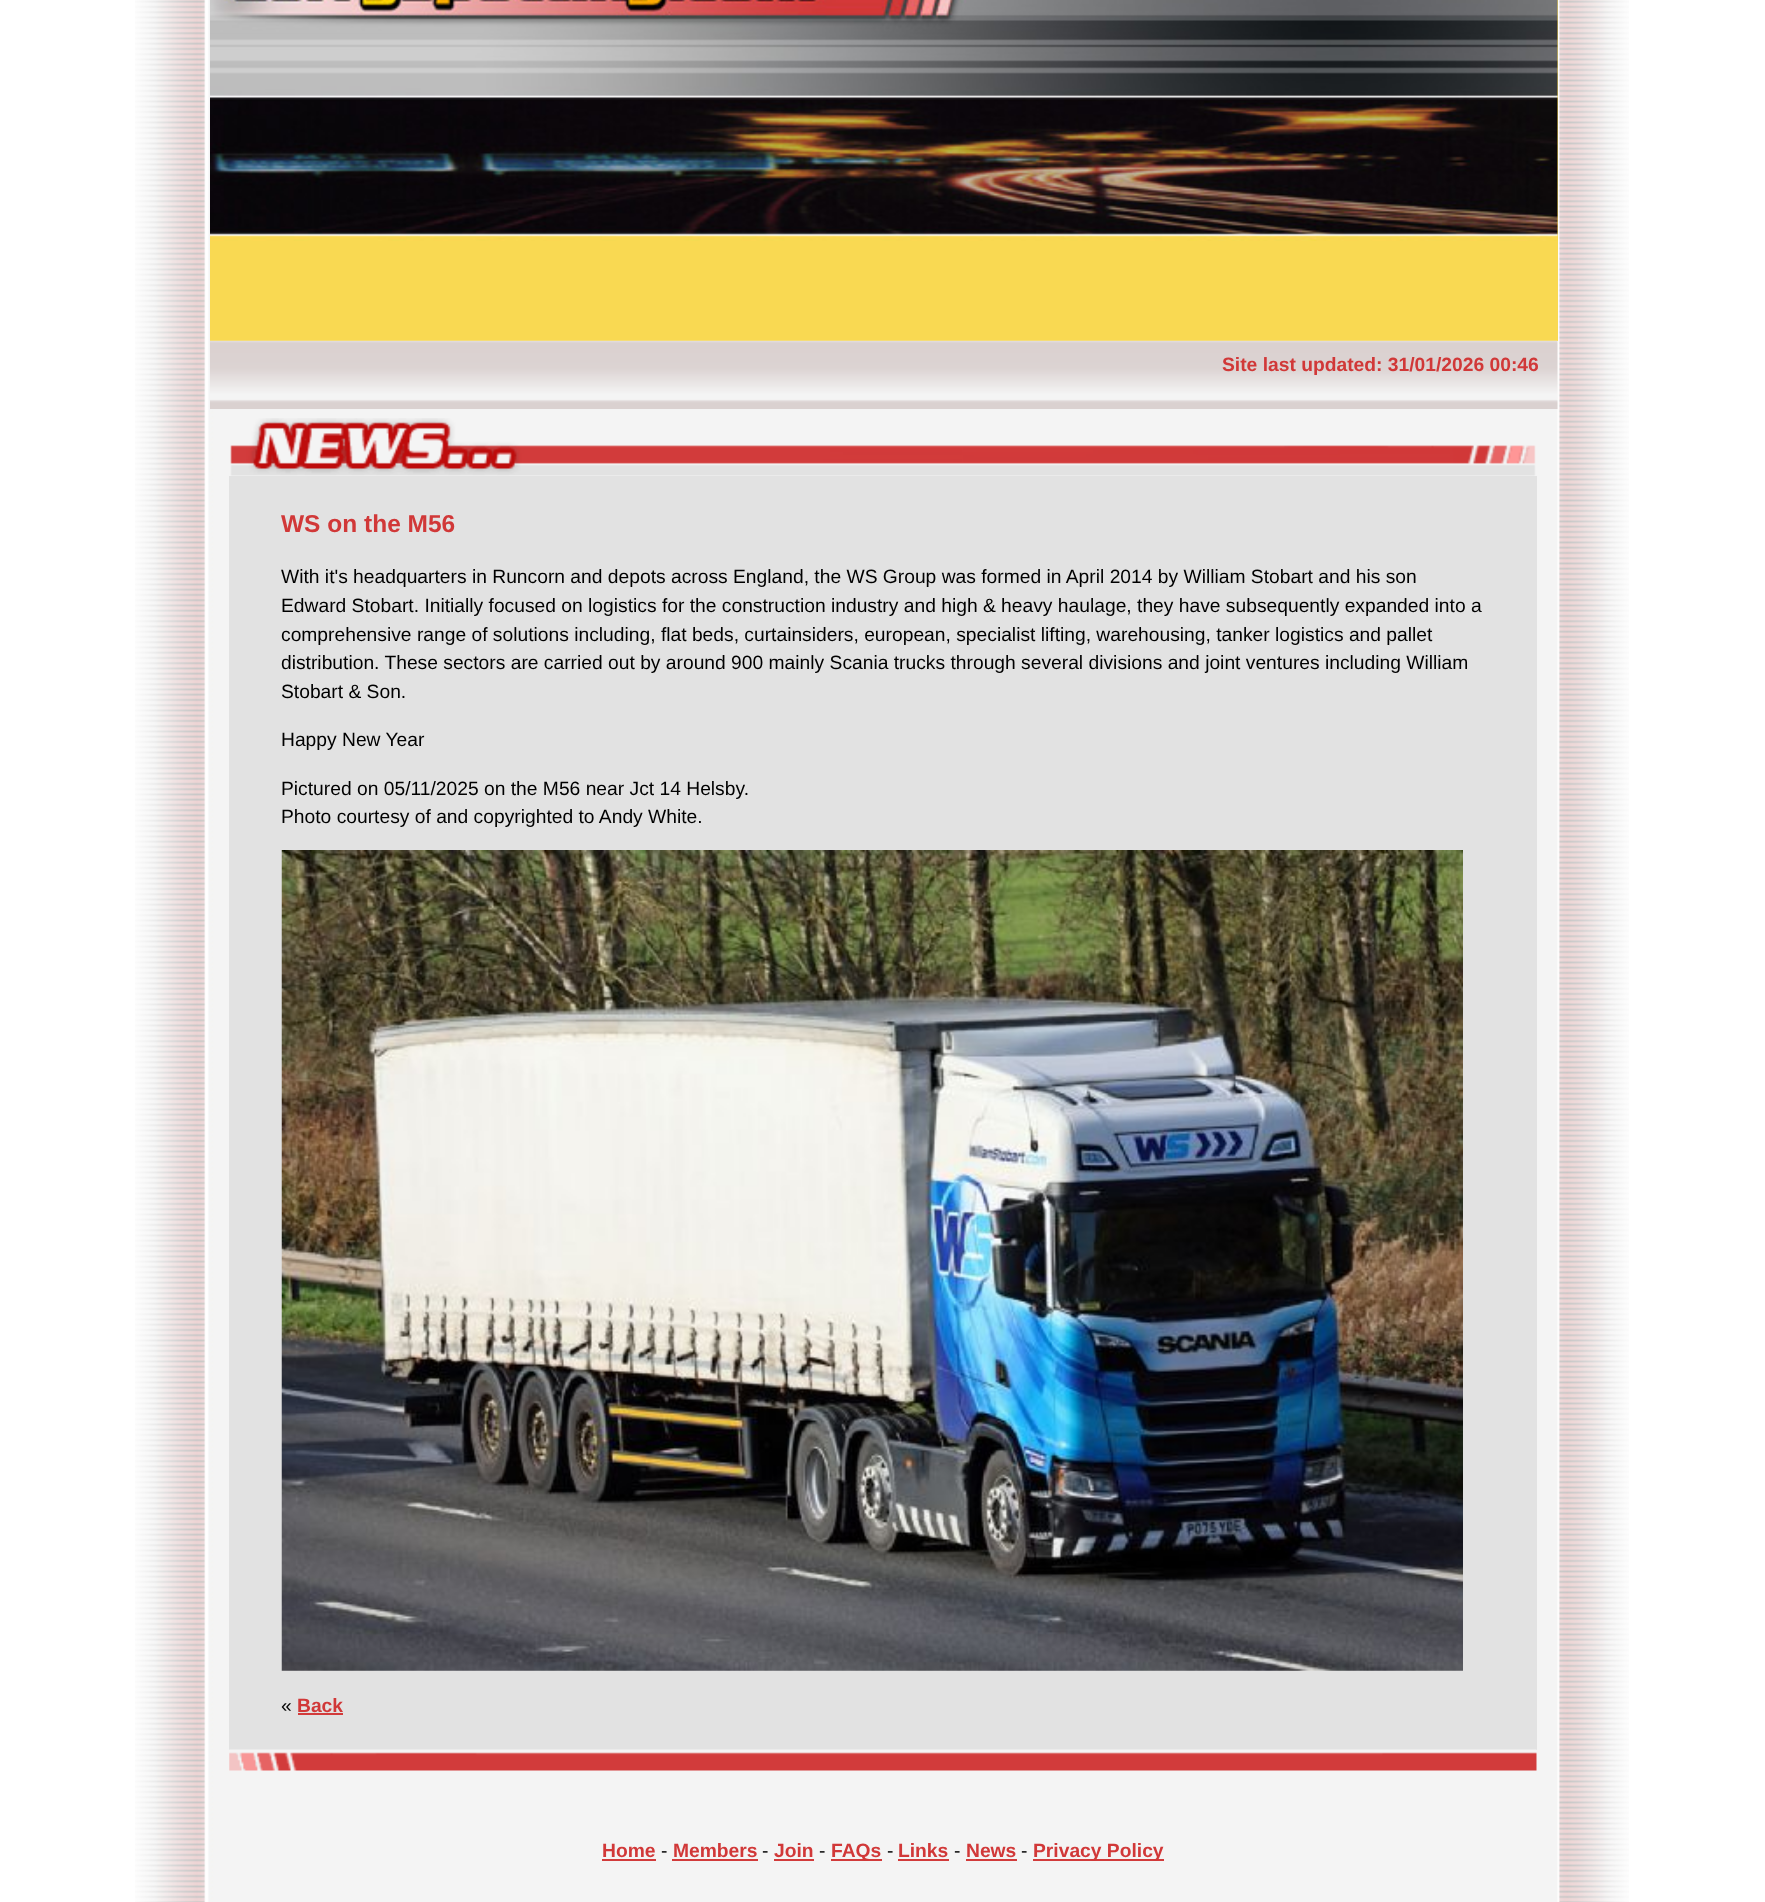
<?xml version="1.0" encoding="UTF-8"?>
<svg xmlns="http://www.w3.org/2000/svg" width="1765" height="1902">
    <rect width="100%" height="100%" fill="#FFFFFF"/>
    <image x="135" y="0" width="1494" height="1902" href="img_01.png"/>
    <rect x="210" y="0" width="1348" height="341" fill="#F9D952"/>
    <image x="210" y="0" width="1348" height="241" href="img_02.png"/>
    <image x="210" y="340" width="1348" height="69" href="img_03.png"/>
    <text x="1222" y="371" font-family="Liberation Sans" font-size="19.25" font-weight="700" fill="#D13838">Site last updated: 31/01/2026 00:46</text>
    <image x="230" y="418" width="1306" height="58" href="img_04.png"/>
    <rect x="229" y="476" width="1308" height="1274" fill="#E2E2E2"/>
    <text x="281" y="532" font-family="Liberation Sans" font-size="24.5" font-weight="700" fill="#D13838">WS on the M56</text>
    <text font-family="Liberation Sans" font-size="19.25" fill="#000000">
        <tspan x="281" y="583">With it's headquarters in Runcorn and depots across England, the WS Group was formed in April 2014 by William Stobart and his son</tspan>
        <tspan x="281" y="612">Edward Stobart. Initially focused on logistics for the construction industry and high &amp; heavy haulage, they have subsequently expanded into a</tspan>
        <tspan x="281" y="641">comprehensive range of solutions including, flat beds, curtainsiders, european, specialist lifting, warehousing, tanker logistics and pallet</tspan>
        <tspan x="281" y="669">distribution. These sectors are carried out by around 900 mainly Scania trucks through several divisions and joint ventures including William</tspan>
        <tspan x="281" y="698">Stobart &amp; Son.</tspan>
    </text>
    <text x="281" y="746" font-family="Liberation Sans" font-size="19.25" fill="#000000">Happy New Year</text>
    <text font-family="Liberation Sans" font-size="19.25" fill="#000000">
        <tspan x="281" y="795">Pictured on 05/11/2025 on the M56 near Jct 14 Helsby.</tspan>
        <tspan x="281" y="823">Photo courtesy of and copyrighted to Andy White.</tspan>
    </text>
    <image x="281" y="850" width="1182" height="821" href="img_05.png"/>
    <text x="281" y="1712" font-family="Liberation Sans" font-size="19.25" fill="#000000">«</text>
    <text x="297" y="1712" font-family="Liberation Sans" font-size="19.25" font-weight="700" fill="#D13838">Back</text>
    <rect x="298" y="1713" width="45" height="2" fill="#D23B3B"/>
    <image x="229" y="1749" width="1308" height="22" href="img_06.png"/>
    <text x="602" y="1857" font-family="Liberation Sans" font-size="19.25" font-weight="700" fill="#D13838">Home</text>
    <rect x="602" y="1859" width="54" height="2" fill="#D23B3B"/>
    <text x="661" y="1857" font-family="Liberation Sans" font-size="19.25" fill="#000000">-</text>
    <text x="673" y="1857" font-family="Liberation Sans" font-size="19.25" font-weight="700" fill="#D13838">Members</text>
    <rect x="672" y="1859" width="86" height="2" fill="#D23B3B"/>
    <text x="762" y="1857" font-family="Liberation Sans" font-size="19.25" fill="#000000">-</text>
    <text x="774" y="1857" font-family="Liberation Sans" font-size="19.25" font-weight="700" fill="#D13838">Join</text>
    <rect x="774" y="1859" width="40" height="2" fill="#D23B3B"/>
    <text x="819" y="1857" font-family="Liberation Sans" font-size="19.25" fill="#000000">-</text>
    <rect x="831" y="1859" width="51" height="2" fill="#D23B3B"/>
    <text x="831" y="1857" font-family="Liberation Sans" font-size="19.25" font-weight="700" fill="#D13838">FAQs</text>
    <text x="887" y="1857" font-family="Liberation Sans" font-size="19.25" fill="#000000">-</text>
    <text x="898" y="1857" font-family="Liberation Sans" font-size="19.25" font-weight="700" fill="#D13838">Links</text>
    <rect x="898" y="1859" width="51" height="2" fill="#D23B3B"/>
    <text x="954" y="1857" font-family="Liberation Sans" font-size="19.25" fill="#000000">-</text>
    <text x="966" y="1857" font-family="Liberation Sans" font-size="19.25" font-weight="700" fill="#D13838">News</text>
    <rect x="966" y="1859" width="51" height="2" fill="#D23B3B"/>
    <text x="1021" y="1857" font-family="Liberation Sans" font-size="19.25" fill="#000000">-</text>
    <rect x="1033" y="1859" width="131" height="2" fill="#D23B3B"/>
    <text x="1033" y="1857" font-family="Liberation Sans" font-size="19.25" font-weight="700" fill="#D13838">Privacy Policy</text>
</svg>
